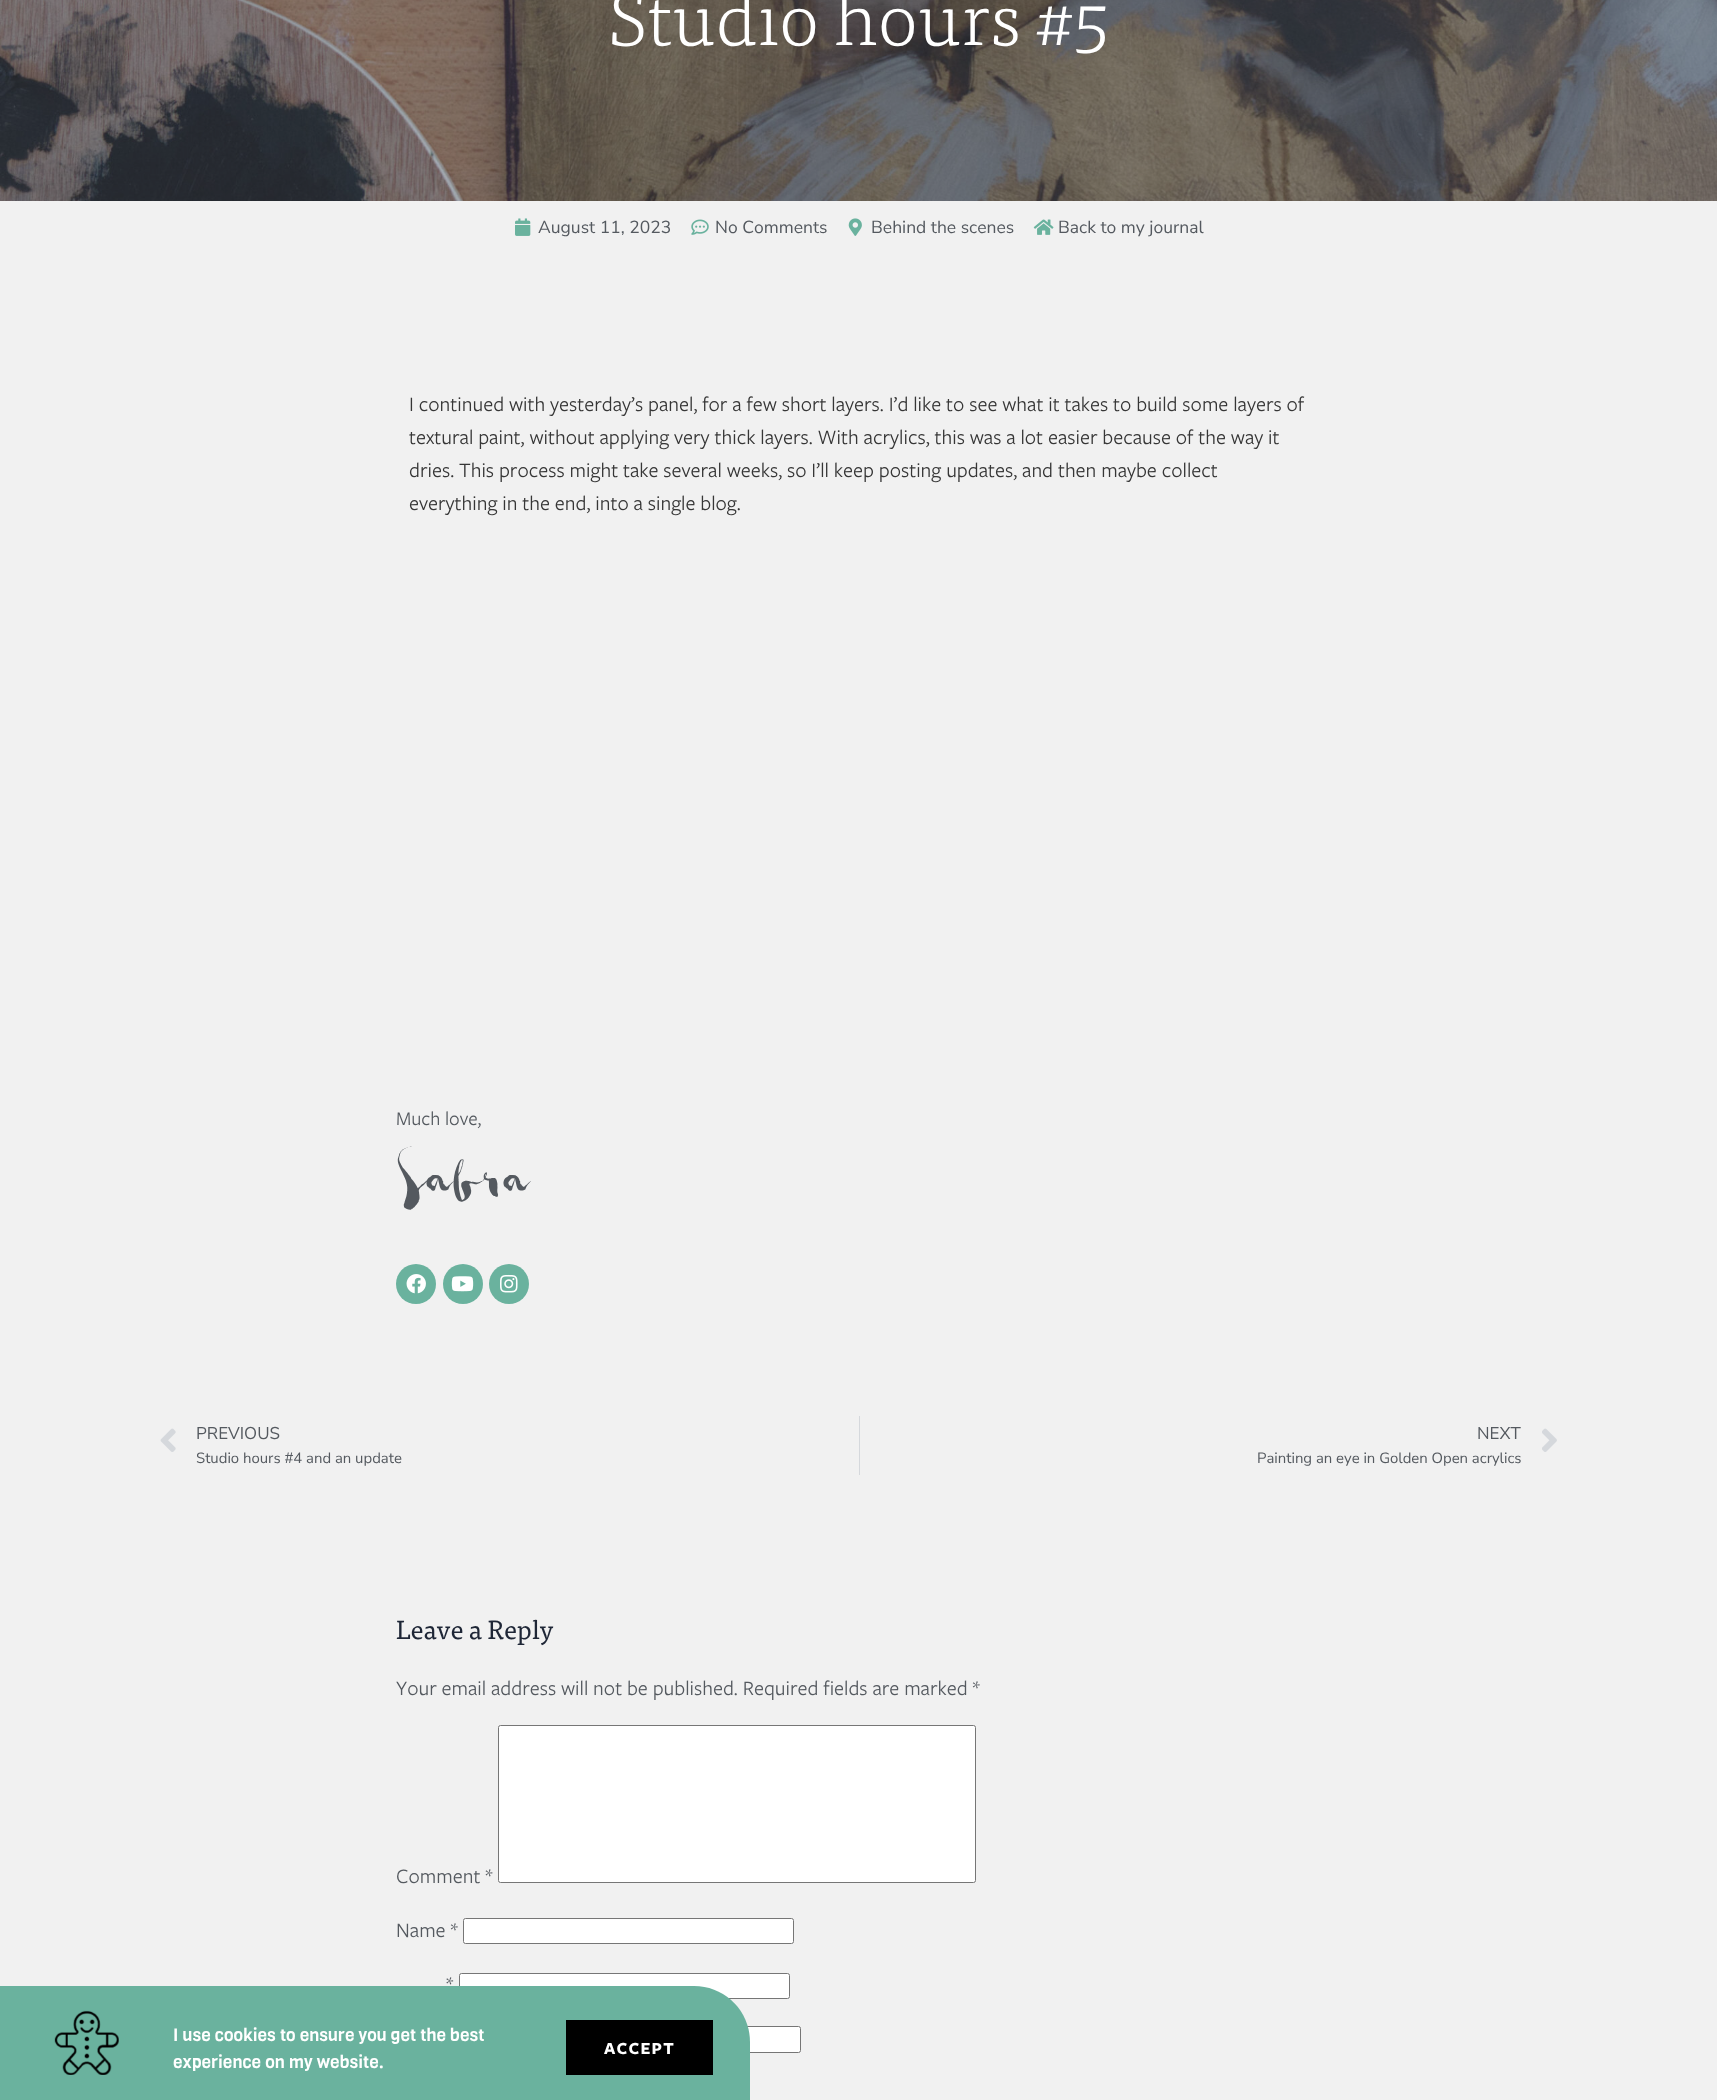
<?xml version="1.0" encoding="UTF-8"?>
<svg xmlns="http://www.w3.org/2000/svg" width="1717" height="2100">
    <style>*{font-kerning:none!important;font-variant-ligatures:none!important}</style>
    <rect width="100%" height="100%" fill="#F1F1F1"/>
    <image x="0" y="0" width="1717" height="201" href="img_01.png"/>
    <text x="608" y="45" font-family="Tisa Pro" font-size="75" font-weight="300" fill="#FFFFFF">Studio hours #5</text>
    <image x="515" y="218" width="16" height="18" href="img_02.png"/>
    <text x="538" y="233" font-family="Nunito Sans" font-size="17.5" fill="#54595F">August 11, 2023</text>
    <image x="691" y="219" width="18" height="16" href="img_03.png"/>
    <text x="715" y="233" font-family="Nunito Sans" font-size="17.5" fill="#54595F">No Comments</text>
    <image x="848" y="218" width="14" height="18" href="img_04.png"/>
    <text x="871" y="233" font-family="Nunito Sans" font-size="17.5" fill="#54595F">Behind the scenes</text>
    <image x="1033" y="219" width="21" height="16" href="img_05.png"/>
    <text x="1058" y="233" font-family="Nunito Sans" font-size="17.5" fill="#54595F">Back to my journal</text>
    <text font-family="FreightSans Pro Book" font-size="21.25" fill="#363636">
        <tspan x="409" y="411">I continued with yesterday’s panel, for a few short layers. I’d like to see what it takes to build some layers of</tspan>
        <tspan x="409" y="444">textural paint, without applying very thick layers. With acrylics, this was a lot easier because of the way it</tspan>
        <tspan x="409" y="477">dries. This process might take several weeks, so I’ll keep posting updates, and then maybe collect</tspan>
        <tspan x="409" y="510">everything in the end, into a single blog.</tspan>
    </text>
    <text x="396" y="1125" font-family="FreightSans Pro Book" font-size="20" fill="#54595F">Much love,</text>
    <text x="396" y="1200" font-family="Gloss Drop" font-size="60" fill="#54595F">Sabra</text>
    <circle cx="416" cy="1284" r="20" fill="#6AB29E"/>
    <image x="406" y="1274" width="20" height="20" href="img_06.png"/>
    <circle cx="463" cy="1284" r="20" fill="#6AB29E"/>
    <image x="451" y="1276" width="23" height="16" href="img_07.png"/>
    <circle cx="509" cy="1284" r="20" fill="#6AB29E"/>
    <image x="500" y="1274" width="18" height="19" href="img_08.png"/>
    <image x="160" y="1428" width="16" height="24" href="img_09.png"/>
    <text x="196" y="1439" font-family="Nunito Sans" font-size="17" fill="#54595F">PREVIOUS</text>
    <text x="196" y="1463" font-family="Nunito Sans" font-size="14.9" fill="#54595F">Studio hours #4 and an update</text>
    <rect x="859" y="1416" width="1" height="59" fill="#D5D8DC"/>
    <text x="1477" y="1439" font-family="Nunito Sans" font-size="17" fill="#54595F">NEXT</text>
    <text x="1257" y="1463" font-family="Nunito Sans" font-size="14.9" fill="#54595F">Painting an eye in Golden Open acrylics</text>
    <image x="1542" y="1428" width="15" height="24" href="img_10.png"/>
    <text x="396" y="1639" font-family="Tisa Pro" font-size="26.25" fill="#1E2636">Leave a Reply</text>
    <text x="396" y="1695" font-family="FreightSans Pro Book" font-size="21.25" fill="#54595F">Your email address will not be published. Required fields are marked *</text>
    <text x="396" y="1883" font-family="FreightSans Pro Book" font-size="21.25" fill="#54595F">Comment *</text>
    <rect x="498.5" y="1725.5" width="477" height="157" rx="2" fill="#FFFFFF" stroke="#767676"/>
    <text x="396" y="1937" font-family="FreightSans Pro Book" font-size="21.25" fill="#54595F">Name *</text>
    <rect x="463.5" y="1918.5" width="330" height="25" rx="2" fill="#FFFFFF" stroke="#767676"/>
    <text x="446" y="1991" font-family="FreightSans Pro Book" font-size="21.25" fill="#54595F">*</text>
    <rect x="459.5" y="1973.5" width="330" height="25" rx="2" fill="#FFFFFF" stroke="#767676"/>
    <rect x="470.5" y="2026.5" width="330" height="26" rx="2" fill="#FFFFFF" stroke="#767676"/>
    <path d="M 0 1986 H 694 C 725 1986 750 2011 750 2042 V 2100 H 0 Z" fill="#6AB29E"/>
    <image x="54" y="2010" width="65" height="65" href="img_11.png"/>
    <text font-family="Viga" font-size="17.5" fill="#FFFFFF">
        <tspan x="173" y="2041">I use cookies to ensure you get the best</tspan>
        <tspan x="173" y="2068">experience on my website.</tspan>
    </text>
    <rect x="566" y="2020" width="147" height="55" fill="#000000"/>
    <text x="604" y="2054" font-family="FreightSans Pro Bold" font-size="17.5" font-weight="700" letter-spacing="1.25" fill="#FFFFFF">ACCEPT</text>
</svg>
